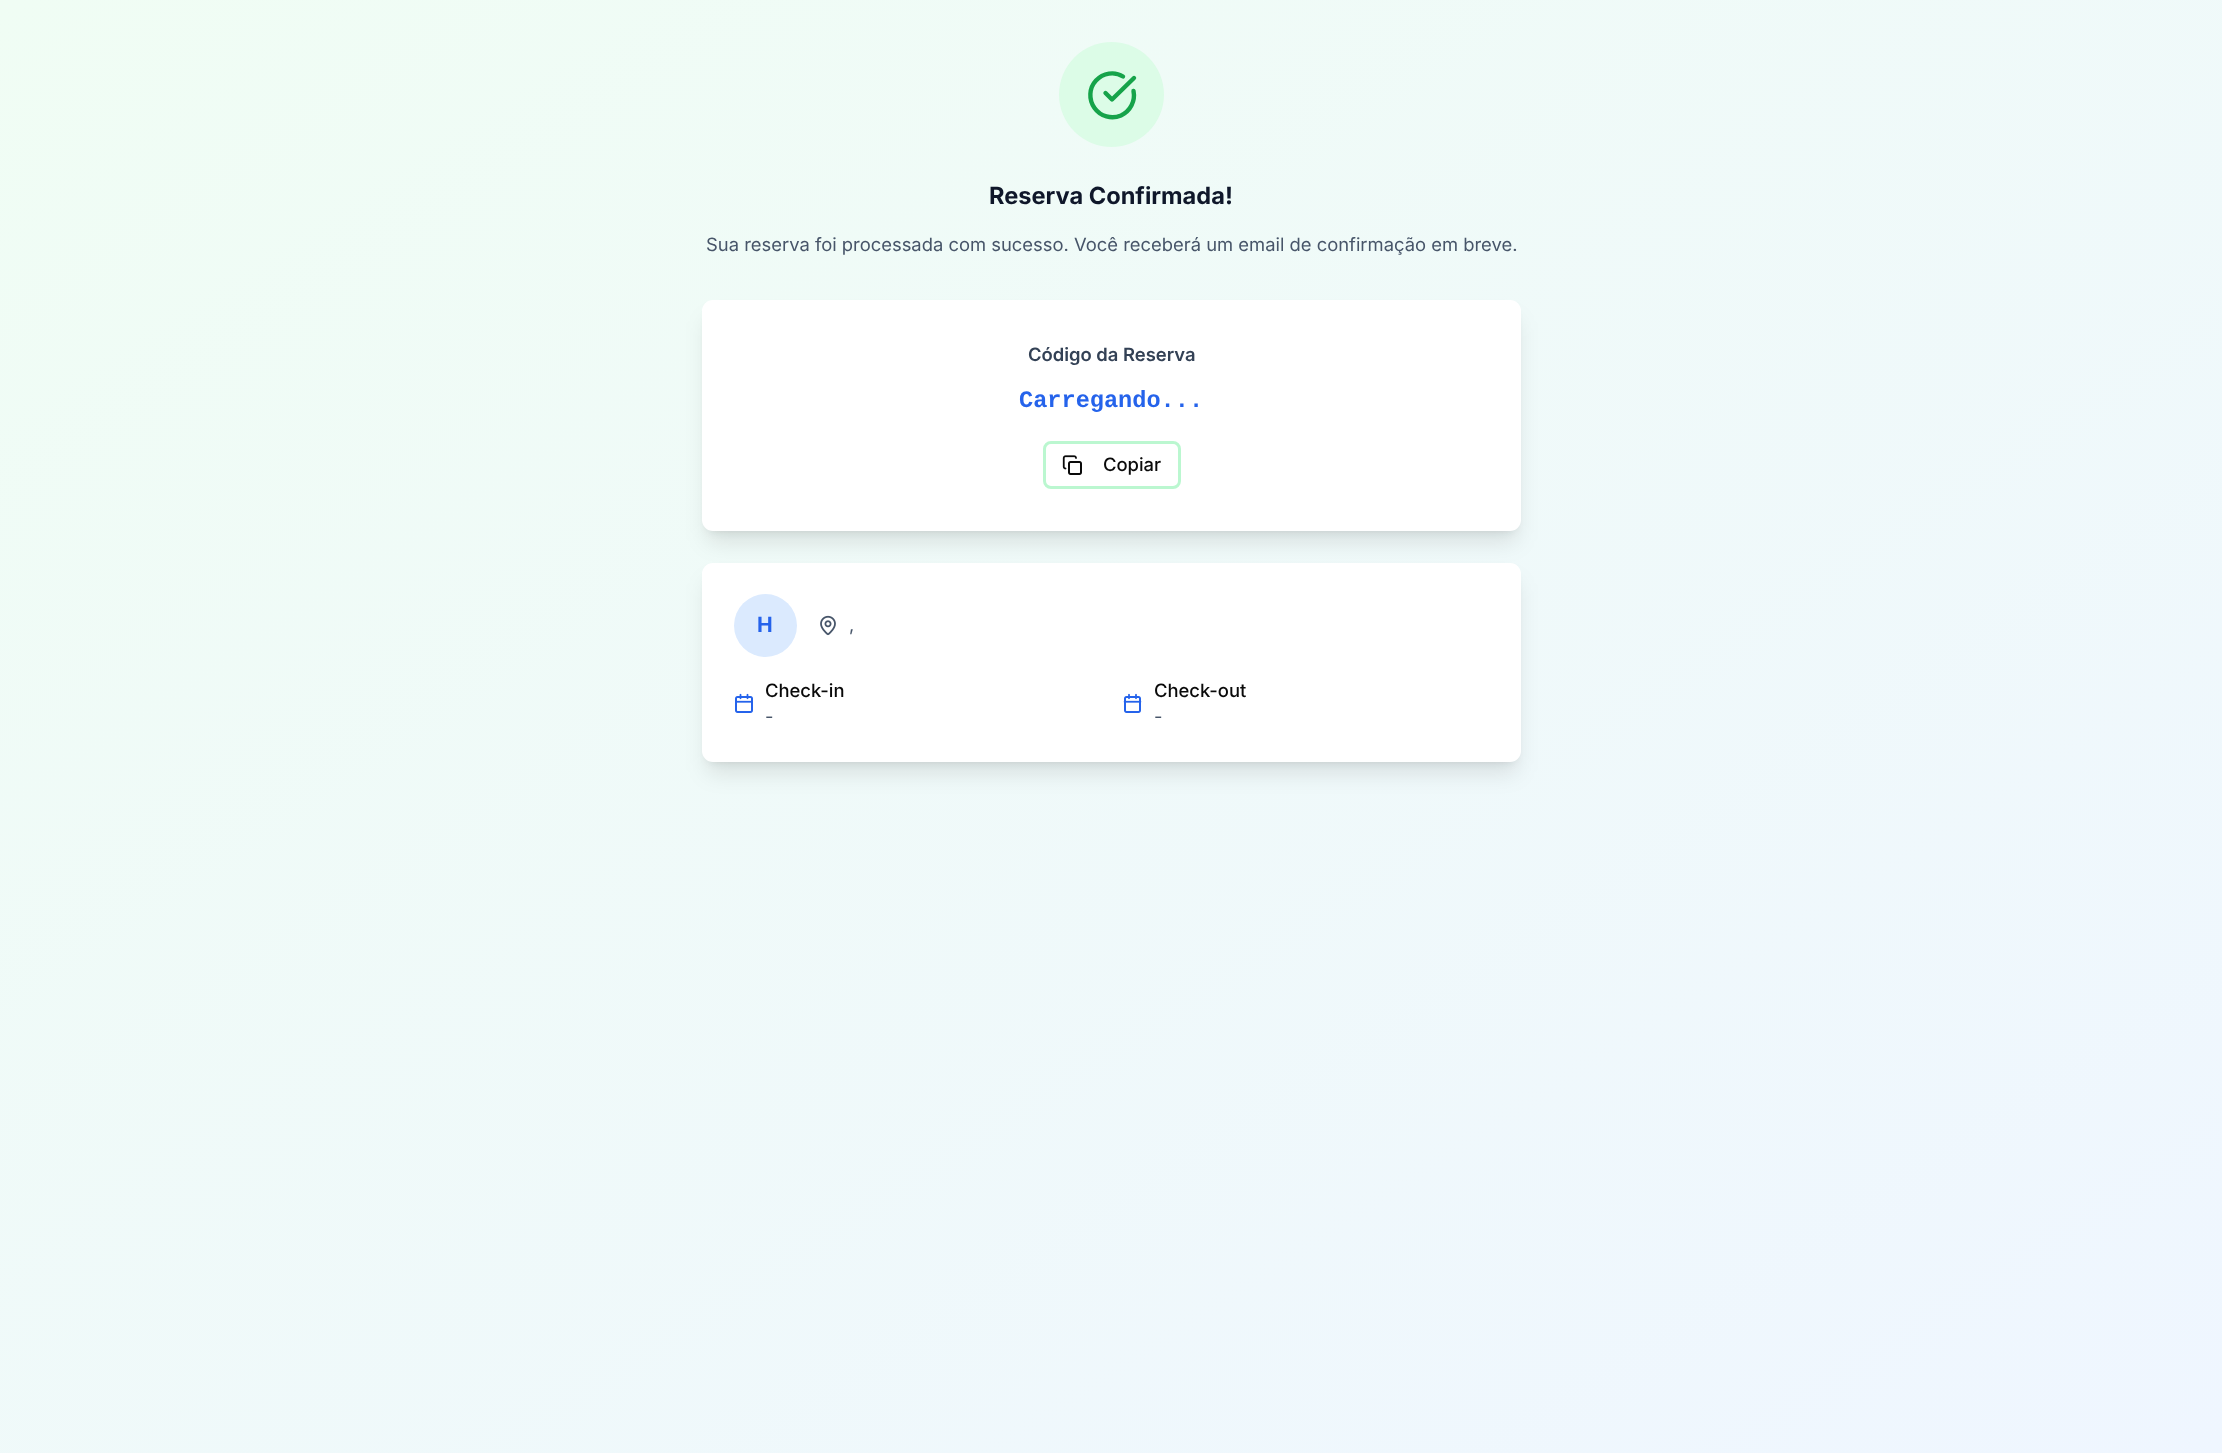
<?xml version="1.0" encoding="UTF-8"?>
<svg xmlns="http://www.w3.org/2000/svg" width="2222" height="1453">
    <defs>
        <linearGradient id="g1" gradientUnits="userSpaceOnUse" x1="446" y1="-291" x2="1777" y2="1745"><stop offset="0" stop-color="#F0FDF4"/><stop offset="1" stop-color="#EFF6FF"/></linearGradient>
        <filter id="blur1" x="-50%" y="-200%" width="200%" height="500%"><feGaussianBlur stdDeviation="4.5"/></filter>
        <filter id="blur2" x="-50%" y="-200%" width="200%" height="500%"><feGaussianBlur stdDeviation="11"/></filter>
    </defs>
    <rect width="100%" height="100%" fill="#FFFFFF"/>
    <rect x="0" y="0" width="2222" height="1453" fill="url(#g1)"/>
    <circle cx="1111.5" cy="94.5" r="52.5" fill="#DCFCE7"/>
    <path d="M 1133.5 91 C 1135.5 101 1130.5 111 1121 115.5 C 1111.5 119.5 1100.5 116.5 1094.5 108 C 1088.5 99.5 1089 88 1096 80.5 C 1103 73 1114.5 71 1123 76.5 M 1105.5 93 L 1112 99.5 L 1134 78" fill="none" stroke="#16A34A" stroke-width="4.4" stroke-linecap="round" stroke-linejoin="round"/>
    <text x="989" y="204" font-family="Inter" font-size="23.6" font-weight="700" fill="#0F172A">Reserva Confirmada!</text>
    <text x="706" y="251" font-family="Inter" font-size="18.4" fill="#475569">Sua reserva foi processada com sucesso. Você receberá um email de confirmação em breve.</text>
    <rect x="708" y="312" width="807" height="219" rx="5" fill="#000000" fill-opacity="0.1" filter="url(#blur1)"/>
    <rect x="707" y="320" width="810" height="222" rx="6" fill="#000000" fill-opacity="0.1" filter="url(#blur2)"/>
    <rect x="702" y="300" width="819" height="231" rx="11" fill="#FFFFFF"/>
    <text x="1028" y="361" font-family="Inter" font-size="18.4" font-weight="600" fill="#334155">Código da Reserva</text>
    <text x="1019" y="407" font-family="Liberation Mono" font-size="23.6" font-weight="700" fill="#2563EB">Carregando...</text>
    <rect x="1044.5" y="442.5" width="135" height="45" rx="6.5" fill="none" stroke="#BBF7D0" stroke-width="3"/>
    <image x="1062" y="455" width="20" height="20" href="img_01.png"/>
    <text x="1103" y="471" font-family="Inter" font-size="18.4" font-weight="500" fill="#0A0A0A">Copiar</text>
    <rect x="708" y="575" width="807" height="187" rx="5" fill="#000000" fill-opacity="0.1" filter="url(#blur1)"/>
    <rect x="707" y="582" width="810" height="191" rx="6" fill="#000000" fill-opacity="0.1" filter="url(#blur2)"/>
    <rect x="702" y="563" width="819" height="199" rx="11" fill="#FFFFFF"/>
    <circle cx="765.5" cy="625.5" r="31.5" fill="#DBEAFE"/>
    <text x="757" y="632" font-family="Inter" font-size="21" font-weight="700" fill="#2563EB">H</text>
    <image x="820" y="615" width="16" height="21" href="img_02.png"/>
    <text x="849" y="631" font-family="Inter" font-size="18.4" fill="#475569">,</text>
    <image x="735" y="693" width="18" height="20" href="img_03.png"/>
    <text x="765" y="697" font-family="Inter" font-size="18.4" font-weight="500" fill="#0A0A0A">Check-in</text>
    <text x="765" y="723" font-family="Inter" font-size="18.4" fill="#475569">-</text>
    <image x="1123" y="693" width="19" height="20" href="img_04.png"/>
    <text x="1154" y="697" font-family="Inter" font-size="18.4" font-weight="500" fill="#0A0A0A">Check-out</text>
    <text x="1154" y="723" font-family="Inter" font-size="18.4" fill="#475569">-</text>
</svg>
